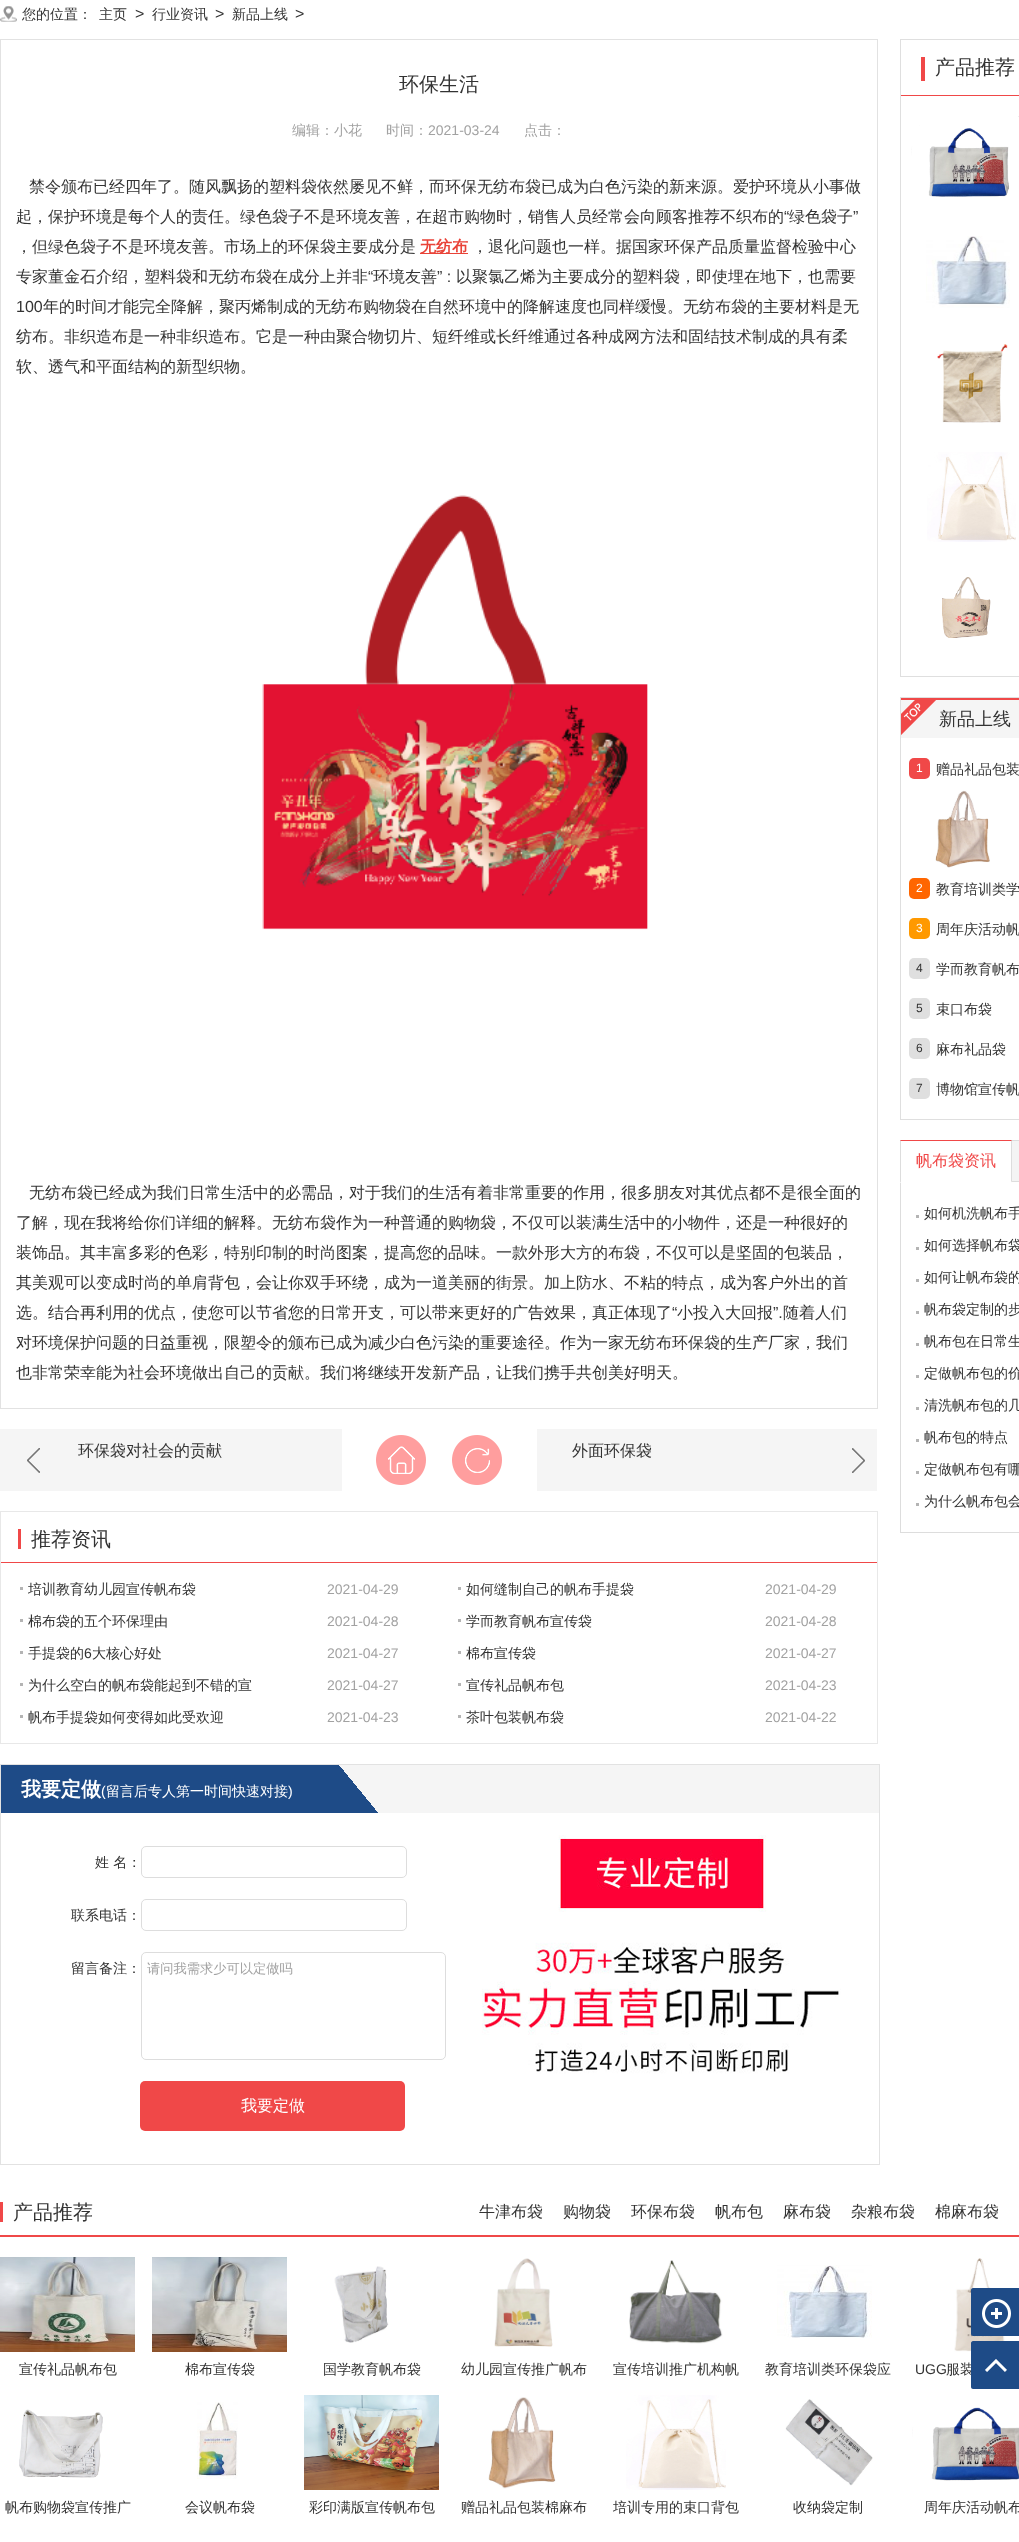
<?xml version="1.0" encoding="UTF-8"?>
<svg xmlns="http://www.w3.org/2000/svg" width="1019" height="2542">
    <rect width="100%" height="100%" fill="#FFFFFF"/>
    <image x="0" y="6" width="17" height="16" href="img_01.png"/>
    <text x="22" y="19" font-family="WenQuanYi Zen Hei" font-size="14" font-weight="500" fill="#333333">您的位置：</text>
    <text x="99" y="19" font-family="WenQuanYi Zen Hei" font-size="14" font-weight="500" fill="#333333">主页</text>
    <text x="135" y="19" font-family="Liberation Sans" font-size="16" fill="#333333">&gt;</text>
    <text x="152" y="19" font-family="WenQuanYi Zen Hei" font-size="14" font-weight="500" fill="#333333">行业资讯</text>
    <text x="215" y="19" font-family="Liberation Sans" font-size="16" fill="#333333">&gt;</text>
    <text x="232" y="19" font-family="WenQuanYi Zen Hei" font-size="14" font-weight="500" fill="#333333">新品上线</text>
    <text x="295" y="19" font-family="Liberation Sans" font-size="16" fill="#333333">&gt;</text>
    <rect x="0.5" y="39.5" width="877" height="1369" fill="none" stroke="#E2E2E2"/>
    <text x="399" y="91" font-family="WenQuanYi Zen Hei" font-size="20" font-weight="500" fill="#333333">环保生活</text>
    <text x="292" y="135" font-family="WenQuanYi Zen Hei" font-size="14" font-weight="500" fill="#A2A2A2">编辑：小花</text>
    <text x="386" y="135" font-family="WenQuanYi Zen Hei" font-size="14" font-weight="500" fill="#A2A2A2">时间：</text>
    <text x="428" y="135" font-family="Liberation Sans" font-size="14" fill="#A2A2A2">2021-03-24</text>
    <text x="524" y="135" font-family="WenQuanYi Zen Hei" font-size="14" font-weight="500" fill="#A2A2A2">点击：</text>
    <text x="29" y="192" font-family="WenQuanYi Zen Hei" font-size="16" font-weight="500" fill="#333333">禁令颁布已经四年了。随风飘扬的塑料袋依然屡见不鲜，而环保无纺布袋已成为白色污染的新来源。爱护环境从小事做</text>
    <text x="16" y="222" font-family="WenQuanYi Zen Hei" font-size="16" font-weight="500" fill="#333333">起，保护环境是每个人的责任。绿色袋子不是环境友善，在超市购物时，销售人员经常会向顾客推荐不织布的</text>
    <text x="784" y="222" font-family="Liberation Sans" font-size="16" fill="#333333">“</text>
    <text x="789" y="222" font-family="WenQuanYi Zen Hei" font-size="16" font-weight="500" fill="#333333">绿色袋子</text>
    <text x="853" y="222" font-family="Liberation Sans" font-size="16" fill="#333333">”</text>
    <text x="16" y="252" font-family="WenQuanYi Zen Hei" font-size="16" font-weight="500" fill="#333333">，但绿色袋子不是环境友善。市场上的环保袋主要成分是</text>
    <rect x="420" y="253" width="48" height="1" fill="#E94338"/>
    <text x="420" y="252" font-family="WenQuanYi Zen Hei" font-size="16" font-weight="700" fill="#E94338">无纺布</text>
    <text x="472" y="252" font-family="WenQuanYi Zen Hei" font-size="16" font-weight="500" fill="#333333">，退化问题也一样。据国家环保产品质量监督检验中心</text>
    <text x="16" y="282" font-family="WenQuanYi Zen Hei" font-size="16" font-weight="500" fill="#333333">专家董金石介绍，塑料袋和无纺布袋在成分上并非</text>
    <text x="368" y="282" font-family="Liberation Sans" font-size="16" fill="#333333">“</text>
    <text x="373" y="282" font-family="WenQuanYi Zen Hei" font-size="16" font-weight="500" fill="#333333">环境友善</text>
    <text x="437" y="282" font-family="Liberation Sans" font-size="16" fill="#333333">” :</text>
    <text x="456" y="282" font-family="WenQuanYi Zen Hei" font-size="16" font-weight="500" fill="#333333">以聚氯乙烯为主要成分的塑料袋，即使埋在地下，也需要</text>
    <text x="16" y="312" font-family="Liberation Sans" font-size="16" fill="#333333">100</text>
    <text x="43" y="312" font-family="WenQuanYi Zen Hei" font-size="16" font-weight="500" fill="#333333">年的时间才能完全降解，聚丙烯制成的无纺布购物袋在自然环境中的降解速度也同样缓慢。无纺布袋的主要材料是无</text>
    <text font-family="WenQuanYi Zen Hei" font-size="16" font-weight="500" fill="#333333">
        <tspan x="16" y="342">纺布。非织造布是一种非织造布。它是一种由聚合物切片、短纤维或长纤维通过各种成网方法和固结技术制成的具有柔</tspan>
        <tspan x="16" y="372">软、透气和平面结构的新型织物。</tspan>
    </text>
    <image x="262" y="495" width="386" height="435" href="img_02.png"/>
    <text x="29" y="1198" font-family="WenQuanYi Zen Hei" font-size="16" font-weight="500" fill="#333333">无纺布袋已经成为我们日常生活中的必需品，对于我们的生活有着非常重要的作用，很多朋友对其优点都不是很全面的</text>
    <text font-family="WenQuanYi Zen Hei" font-size="16" font-weight="500" fill="#333333">
        <tspan x="16" y="1228">了解，现在我将给你们详细的解释。无纺布袋作为一种普通的购物袋，不仅可以装满生活中的小物件，还是一种很好的</tspan>
        <tspan x="16" y="1258">装饰品。其丰富多彩的色彩，特别印制的时尚图案，提高您的品味。一款外形大方的布袋，不仅可以是坚固的包装品，</tspan>
        <tspan x="16" y="1288">其美观可以变成时尚的单肩背包，会让你双手环绕，成为一道美丽的街景。加上防水、不粘的特点，成为客户外出的首</tspan>
        <tspan x="16" y="1318">选。结合再利用的优点，使您可以节省您的日常开支，可以带来更好的广告效果，真正体现了</tspan>
    </text>
    <text x="672" y="1318" font-family="Liberation Sans" font-size="16" fill="#333333">“</text>
    <text x="677" y="1318" font-family="WenQuanYi Zen Hei" font-size="16" font-weight="500" fill="#333333">小投入大回报</text>
    <text x="773" y="1318" font-family="Liberation Sans" font-size="16" fill="#333333">”.</text>
    <text x="783" y="1318" font-family="WenQuanYi Zen Hei" font-size="16" font-weight="500" fill="#333333">随着人们</text>
    <text font-family="WenQuanYi Zen Hei" font-size="16" font-weight="500" fill="#333333">
        <tspan x="16" y="1348">对环境保护问题的日益重视，限塑令的颁布已成为减少白色污染的重要途径。作为一家无纺布环保袋的生产厂家，我们</tspan>
        <tspan x="16" y="1378">也非常荣幸能为社会环境做出自己的贡献。我们将继续开发新产品，让我们携手共创美好明天。</tspan>
    </text>
    <rect x="0" y="1429" width="342" height="62" fill="#F5F5F5"/>
    <image x="27" y="1448" width="13" height="25" href="img_03.png"/>
    <text x="78" y="1456" font-family="WenQuanYi Zen Hei" font-size="16" font-weight="500" fill="#333333">环保袋对社会的贡献</text>
    <image x="376" y="1435" width="50" height="50" href="img_04.png"/>
    <image x="452" y="1435" width="50" height="50" href="img_05.png"/>
    <rect x="537" y="1429" width="340" height="62" fill="#F5F5F5"/>
    <image x="852" y="1448" width="13" height="25" href="img_06.png"/>
    <text x="572" y="1456" font-family="WenQuanYi Zen Hei" font-size="16" font-weight="500" fill="#333333">外面环保袋</text>
    <rect x="0.5" y="1511.5" width="877" height="232" fill="none" stroke="#E8E8E8"/>
    <rect x="1" y="1562" width="876" height="1" fill="#F04848"/>
    <rect x="18" y="1529" width="3" height="20" fill="#F04848"/>
    <text x="31" y="1546" font-family="WenQuanYi Zen Hei" font-size="20" font-weight="500" fill="#333333">推荐资讯</text>
    <rect x="20" y="1587" width="3" height="3" fill="#B4B4B4"/>
    <text x="28" y="1594" font-family="WenQuanYi Zen Hei" font-size="14" font-weight="500" fill="#333333">培训教育幼儿园宣传帆布袋</text>
    <text x="327" y="1594" font-family="Liberation Sans" font-size="14" fill="#A2A2A2">2021-04-29</text>
    <rect x="458" y="1587" width="3" height="3" fill="#B4B4B4"/>
    <text x="466" y="1594" font-family="WenQuanYi Zen Hei" font-size="14" font-weight="500" fill="#333333">如何缝制自己的帆布手提袋</text>
    <text x="765" y="1594" font-family="Liberation Sans" font-size="14" fill="#A2A2A2">2021-04-29</text>
    <rect x="20" y="1619" width="3" height="3" fill="#B4B4B4"/>
    <text x="28" y="1626" font-family="WenQuanYi Zen Hei" font-size="14" font-weight="500" fill="#333333">棉布袋的五个环保理由</text>
    <text x="327" y="1626" font-family="Liberation Sans" font-size="14" fill="#A2A2A2">2021-04-28</text>
    <rect x="458" y="1619" width="3" height="3" fill="#B4B4B4"/>
    <text x="466" y="1626" font-family="WenQuanYi Zen Hei" font-size="14" font-weight="500" fill="#333333">学而教育帆布宣传袋</text>
    <text x="765" y="1626" font-family="Liberation Sans" font-size="14" fill="#A2A2A2">2021-04-28</text>
    <rect x="20" y="1651" width="3" height="3" fill="#B4B4B4"/>
    <text x="28" y="1658" font-family="WenQuanYi Zen Hei" font-size="14" font-weight="500" fill="#333333">手提袋的</text>
    <text x="84" y="1658" font-family="Liberation Sans" font-size="14" fill="#333333">6</text>
    <text x="92" y="1658" font-family="WenQuanYi Zen Hei" font-size="14" font-weight="500" fill="#333333">大核心好处</text>
    <text x="327" y="1658" font-family="Liberation Sans" font-size="14" fill="#A2A2A2">2021-04-27</text>
    <rect x="458" y="1651" width="3" height="3" fill="#B4B4B4"/>
    <text x="466" y="1658" font-family="WenQuanYi Zen Hei" font-size="14" font-weight="500" fill="#333333">棉布宣传袋</text>
    <text x="765" y="1658" font-family="Liberation Sans" font-size="14" fill="#A2A2A2">2021-04-27</text>
    <rect x="20" y="1683" width="3" height="3" fill="#B4B4B4"/>
    <text x="28" y="1690" font-family="WenQuanYi Zen Hei" font-size="14" font-weight="500" fill="#333333">为什么空白的帆布袋能起到不错的宣</text>
    <text x="327" y="1690" font-family="Liberation Sans" font-size="14" fill="#A2A2A2">2021-04-27</text>
    <rect x="458" y="1683" width="3" height="3" fill="#B4B4B4"/>
    <text x="466" y="1690" font-family="WenQuanYi Zen Hei" font-size="14" font-weight="500" fill="#333333">宣传礼品帆布包</text>
    <text x="765" y="1690" font-family="Liberation Sans" font-size="14" fill="#A2A2A2">2021-04-23</text>
    <rect x="20" y="1715" width="3" height="3" fill="#B4B4B4"/>
    <text x="28" y="1722" font-family="WenQuanYi Zen Hei" font-size="14" font-weight="500" fill="#333333">帆布手提袋如何变得如此受欢迎</text>
    <text x="327" y="1722" font-family="Liberation Sans" font-size="14" fill="#A2A2A2">2021-04-23</text>
    <rect x="458" y="1715" width="3" height="3" fill="#B4B4B4"/>
    <text x="466" y="1722" font-family="WenQuanYi Zen Hei" font-size="14" font-weight="500" fill="#333333">茶叶包装帆布袋</text>
    <text x="765" y="1722" font-family="Liberation Sans" font-size="14" fill="#A2A2A2">2021-04-22</text>
    <rect x="0.5" y="1764.5" width="879" height="400" fill="none" stroke="#E2E2E2"/>
    <rect x="339" y="1765" width="540" height="48" fill="#F5F5F5"/>
    <image x="1" y="1765" width="377" height="48" href="img_07.png"/>
    <text x="21" y="1796" font-family="WenQuanYi Zen Hei" font-size="20" font-weight="700" fill="#FFFFFF">我要定做</text>
    <text x="101" y="1796" font-family="Liberation Sans" font-size="14" fill="#FFFFFF">(</text>
    <text x="106" y="1796" font-family="WenQuanYi Zen Hei" font-size="14" font-weight="500" fill="#FFFFFF">留言后专人第一时间快速对接</text>
    <text x="288" y="1796" font-family="Liberation Sans" font-size="14" fill="#FFFFFF">)</text>
    <text x="95" y="1867" font-family="WenQuanYi Zen Hei" font-size="14" font-weight="500" fill="#333333">姓 名：</text>
    <rect x="141.5" y="1846.5" width="265" height="31" rx="4.5" fill="none" stroke="#DDDDDD"/>
    <text x="71" y="1920" font-family="WenQuanYi Zen Hei" font-size="14" font-weight="500" fill="#333333">联系电话：</text>
    <rect x="141.5" y="1899.5" width="265" height="31" rx="4.5" fill="none" stroke="#DDDDDD"/>
    <text x="71" y="1973" font-family="WenQuanYi Zen Hei" font-size="14" font-weight="500" fill="#333333">留言备注：</text>
    <rect x="141.5" y="1952.5" width="304" height="107" rx="4.5" fill="none" stroke="#DDDDDD"/>
    <text x="147" y="1973" font-family="WenQuanYi Zen Hei" font-size="13.25" font-weight="500" fill="#A2A2A2">请问我需求少可以定做吗</text>
    <rect x="140" y="2081" width="265" height="50" rx="5" fill="#F04848"/>
    <text x="241" y="2111" font-family="WenQuanYi Zen Hei" font-size="16" font-weight="500" fill="#FFFFFF">我要定做</text>
    <image x="481" y="1833" width="360" height="249" href="img_08.png"/>
    <rect x="900.5" y="39.5" width="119" height="637" fill="none" stroke="#DFDFDF"/>
    <rect x="901" y="95" width="118" height="1" fill="#F04848"/>
    <rect x="921" y="57" width="4" height="24" fill="#F04848"/>
    <text x="935" y="74" font-family="WenQuanYi Zen Hei" font-size="20" font-weight="500" fill="#333333">产品推荐</text>
    <image x="911" y="116" width="108" height="81" href="img_09.png"/>
    <image x="926" y="236" width="84" height="72" href="img_10.png"/>
    <image x="937" y="344" width="71" height="79" href="img_11.png"/>
    <image x="927" y="452" width="89" height="90" href="img_12.png"/>
    <image x="942" y="577" width="49" height="61" href="img_13.png"/>
    <rect x="900.5" y="697.5" width="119" height="422" fill="none" stroke="#DFDFDF"/>
    <image x="901" y="700" width="118" height="38" href="img_14.png"/>
    <rect x="901" y="698" width="118" height="2" fill="#F04848"/>
    <text x="939" y="725" font-family="WenQuanYi Zen Hei" font-size="18" font-weight="500" fill="#333333">新品上线</text>
    <rect x="909" y="758" width="21" height="21" rx="5" fill="#F04848"/>
    <text x="916" y="772" font-family="Liberation Sans" font-size="12" fill="#FFFFFF">1</text>
    <text x="936" y="774" font-family="WenQuanYi Zen Hei" font-size="14" font-weight="500" fill="#333333">赠品礼品包装</text>
    <image x="935" y="790" width="55" height="78" href="img_15.png"/>
    <rect x="909" y="878" width="21" height="21" rx="5" fill="#FF6600"/>
    <text x="916" y="892" font-family="Liberation Sans" font-size="12" fill="#FFFFFF">2</text>
    <text x="936" y="894" font-family="WenQuanYi Zen Hei" font-size="14" font-weight="500" fill="#333333">教育培训类学</text>
    <rect x="909" y="918" width="21" height="21" rx="5" fill="#FF9900"/>
    <text x="916" y="932" font-family="Liberation Sans" font-size="12" fill="#FFFFFF">3</text>
    <text x="936" y="934" font-family="WenQuanYi Zen Hei" font-size="14" font-weight="500" fill="#333333">周年庆活动帆</text>
    <rect x="909" y="958" width="21" height="21" rx="5" fill="#DFDFDF"/>
    <text x="916" y="972" font-family="Liberation Sans" font-size="12" fill="#333333">4</text>
    <text x="936" y="974" font-family="WenQuanYi Zen Hei" font-size="14" font-weight="500" fill="#333333">学而教育帆布</text>
    <rect x="909" y="998" width="21" height="21" rx="5" fill="#DFDFDF"/>
    <text x="916" y="1012" font-family="Liberation Sans" font-size="12" fill="#333333">5</text>
    <text x="936" y="1014" font-family="WenQuanYi Zen Hei" font-size="14" font-weight="500" fill="#333333">束口布袋</text>
    <rect x="909" y="1038" width="21" height="21" rx="5" fill="#DFDFDF"/>
    <text x="916" y="1052" font-family="Liberation Sans" font-size="12" fill="#333333">6</text>
    <text x="936" y="1054" font-family="WenQuanYi Zen Hei" font-size="14" font-weight="500" fill="#333333">麻布礼品袋</text>
    <rect x="909" y="1078" width="21" height="21" rx="5" fill="#DFDFDF"/>
    <text x="916" y="1092" font-family="Liberation Sans" font-size="12" fill="#333333">7</text>
    <text x="936" y="1094" font-family="WenQuanYi Zen Hei" font-size="14" font-weight="500" fill="#333333">博物馆宣传帆</text>
    <rect x="900.5" y="1140.5" width="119" height="392" fill="none" stroke="#DDDDDD"/>
    <rect x="1012" y="1141" width="7" height="40" fill="#F4F4F4"/>
    <rect x="1011" y="1181" width="8" height="1" fill="#DDDDDD"/>
    <rect x="900" y="1140" width="112" height="1" fill="#F04848"/>
    <path d="M 1012 1140 V 1183 L 1011 1181 V 1141 Z" fill="#DDDDDD"/>
    <path d="M 1012 1183 H 900 L 901 1181 H 1011 Z" fill="#FFFFFF"/>
    <path d="M 900 1183 V 1140 L 901 1141 V 1181 Z" fill="#DDDDDD"/>
    <text x="916" y="1166" font-family="WenQuanYi Zen Hei" font-size="16" font-weight="500" fill="#F04848">帆布袋资讯</text>
    <rect x="916" y="1215" width="3" height="3" fill="#B4B4B4"/>
    <text x="924" y="1218" font-family="WenQuanYi Zen Hei" font-size="14" font-weight="500" fill="#333333">如何机洗帆布手</text>
    <rect x="916" y="1247" width="3" height="3" fill="#B4B4B4"/>
    <text x="924" y="1250" font-family="WenQuanYi Zen Hei" font-size="14" font-weight="500" fill="#333333">如何选择帆布袋</text>
    <rect x="916" y="1279" width="3" height="3" fill="#B4B4B4"/>
    <text x="924" y="1282" font-family="WenQuanYi Zen Hei" font-size="14" font-weight="500" fill="#333333">如何让帆布袋的</text>
    <rect x="916" y="1311" width="3" height="3" fill="#B4B4B4"/>
    <text x="924" y="1314" font-family="WenQuanYi Zen Hei" font-size="14" font-weight="500" fill="#333333">帆布袋定制的步</text>
    <rect x="916" y="1343" width="3" height="3" fill="#B4B4B4"/>
    <text x="924" y="1346" font-family="WenQuanYi Zen Hei" font-size="14" font-weight="500" fill="#333333">帆布包在日常生</text>
    <rect x="916" y="1375" width="3" height="3" fill="#B4B4B4"/>
    <text x="924" y="1378" font-family="WenQuanYi Zen Hei" font-size="14" font-weight="500" fill="#333333">定做帆布包的价</text>
    <rect x="916" y="1407" width="3" height="3" fill="#B4B4B4"/>
    <text x="924" y="1410" font-family="WenQuanYi Zen Hei" font-size="14" font-weight="500" fill="#333333">清洗帆布包的几</text>
    <rect x="916" y="1439" width="3" height="3" fill="#B4B4B4"/>
    <text x="924" y="1442" font-family="WenQuanYi Zen Hei" font-size="14" font-weight="500" fill="#333333">帆布包的特点</text>
    <rect x="916" y="1471" width="3" height="3" fill="#B4B4B4"/>
    <text x="924" y="1474" font-family="WenQuanYi Zen Hei" font-size="14" font-weight="500" fill="#333333">定做帆布包有哪</text>
    <rect x="916" y="1503" width="3" height="3" fill="#B4B4B4"/>
    <text x="924" y="1506" font-family="WenQuanYi Zen Hei" font-size="14" font-weight="500" fill="#333333">为什么帆布包会</text>
    <rect x="0" y="2235" width="1019" height="2" fill="#F04848"/>
    <rect x="0" y="2202" width="3" height="20" fill="#F04848"/>
    <text x="13" y="2219" font-family="WenQuanYi Zen Hei" font-size="20" font-weight="500" fill="#333333">产品推荐</text>
    <text x="479" y="2217" font-family="WenQuanYi Zen Hei" font-size="16" font-weight="500" fill="#333333">牛津布袋</text>
    <text x="563" y="2217" font-family="WenQuanYi Zen Hei" font-size="16" font-weight="500" fill="#333333">购物袋</text>
    <text x="631" y="2217" font-family="WenQuanYi Zen Hei" font-size="16" font-weight="500" fill="#333333">环保布袋</text>
    <text x="715" y="2217" font-family="WenQuanYi Zen Hei" font-size="16" font-weight="500" fill="#333333">帆布包</text>
    <text x="783" y="2217" font-family="WenQuanYi Zen Hei" font-size="16" font-weight="500" fill="#333333">麻布袋</text>
    <text x="851" y="2217" font-family="WenQuanYi Zen Hei" font-size="16" font-weight="500" fill="#333333">杂粮布袋</text>
    <text x="935" y="2217" font-family="WenQuanYi Zen Hei" font-size="16" font-weight="500" fill="#333333">棉麻布袋</text>
    <image x="0" y="2257" width="135" height="95" href="img_16.png"/>
    <text x="19" y="2374" font-family="WenQuanYi Zen Hei" font-size="14" font-weight="500" fill="#333333">宣传礼品帆布包</text>
    <image x="152" y="2257" width="135" height="95" href="img_17.png"/>
    <text x="185" y="2374" font-family="WenQuanYi Zen Hei" font-size="14" font-weight="500" fill="#333333">棉布宣传袋</text>
    <image x="334" y="2266" width="55" height="77" href="img_18.png"/>
    <text x="323" y="2374" font-family="WenQuanYi Zen Hei" font-size="14" font-weight="500" fill="#333333">国学教育帆布袋</text>
    <image x="494" y="2258" width="59" height="89" href="img_19.png"/>
    <text x="461" y="2374" font-family="WenQuanYi Zen Hei" font-size="14" font-weight="500" fill="#333333">幼儿园宣传推广帆布</text>
    <image x="629" y="2260" width="94" height="84" href="img_20.png"/>
    <text x="613" y="2374" font-family="WenQuanYi Zen Hei" font-size="14" font-weight="500" fill="#333333">宣传培训推广机构帆</text>
    <image x="777" y="2265" width="95" height="73" href="img_21.png"/>
    <text x="765" y="2374" font-family="WenQuanYi Zen Hei" font-size="14" font-weight="500" fill="#333333">教育培训类环保袋应</text>
    <image x="954" y="2258" width="52" height="94" href="img_22.png"/>
    <text x="915" y="2374" font-family="Liberation Sans" font-size="14" fill="#333333">UGG</text>
    <text x="946" y="2374" font-family="WenQuanYi Zen Hei" font-size="14" font-weight="500" fill="#333333">服装</text>
    <image x="19" y="2409" width="84" height="69" href="img_23.png"/>
    <text x="5" y="2512" font-family="WenQuanYi Zen Hei" font-size="14" font-weight="500" fill="#333333">帆布购物袋宣传推广</text>
    <image x="197" y="2402" width="41" height="77" href="img_24.png"/>
    <text x="185" y="2512" font-family="WenQuanYi Zen Hei" font-size="14" font-weight="500" fill="#333333">会议帆布袋</text>
    <image x="304" y="2395" width="135" height="95" href="img_25.png"/>
    <text x="309" y="2512" font-family="WenQuanYi Zen Hei" font-size="14" font-weight="500" fill="#333333">彩印满版宣传帆布包</text>
    <image x="488" y="2397" width="68" height="92" href="img_26.png"/>
    <text x="461" y="2512" font-family="WenQuanYi Zen Hei" font-size="14" font-weight="500" fill="#333333">赠品礼品包装棉麻布</text>
    <image x="626" y="2395" width="100" height="95" href="img_27.png"/>
    <text x="613" y="2512" font-family="WenQuanYi Zen Hei" font-size="14" font-weight="500" fill="#333333">培训专用的束口背包</text>
    <image x="785" y="2399" width="88" height="87" href="img_28.png"/>
    <text x="793" y="2512" font-family="WenQuanYi Zen Hei" font-size="14" font-weight="500" fill="#333333">收纳袋定制</text>
    <image x="912" y="2407" width="107" height="74" href="img_29.png"/>
    <text x="924" y="2512" font-family="WenQuanYi Zen Hei" font-size="14" font-weight="500" fill="#333333">周年庆活动帆布</text>
    <path d="M 973 2288 H 1019 V 2336 H 973 C 972 2336 971 2335 971 2334 V 2290 C 971 2289 972 2288 973 2288 Z" fill="#1E4B87"/>
    <image x="982" y="2299" width="29" height="29" href="img_30.png"/>
    <path d="M 973 2341 H 1019 V 2389 H 973 C 972 2389 971 2388 971 2387 V 2343 C 971 2342 972 2341 973 2341 Z" fill="#1E4B87"/>
    <image x="985" y="2359" width="22" height="13" href="img_31.png"/>
</svg>
